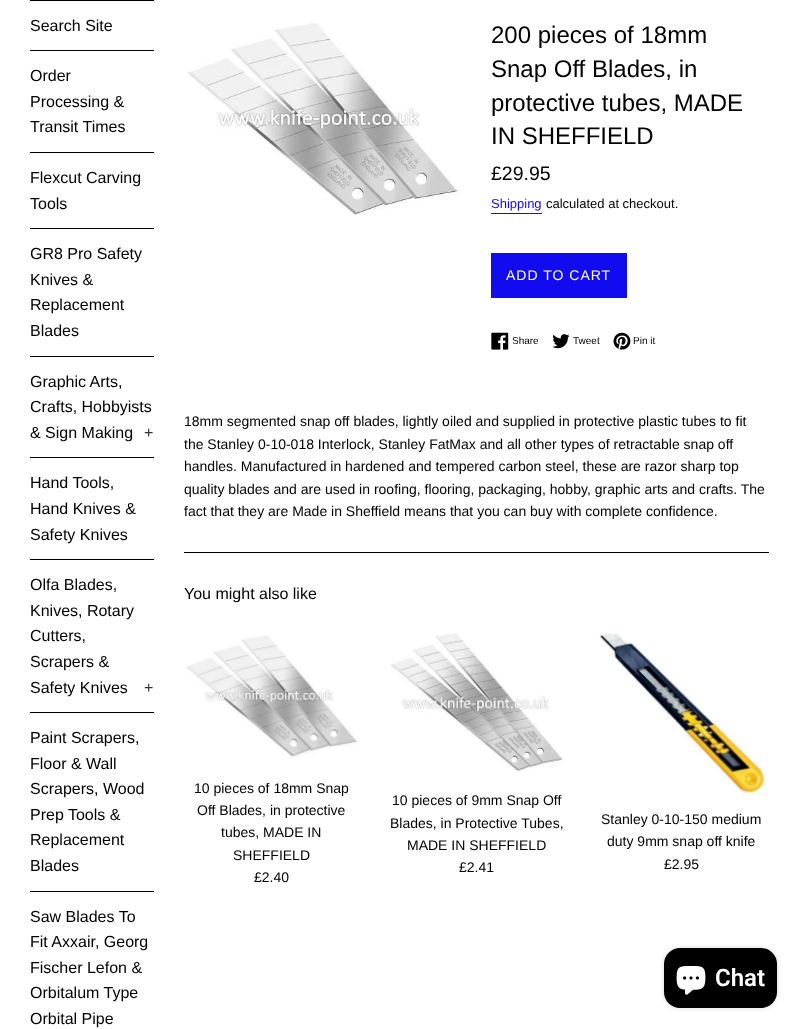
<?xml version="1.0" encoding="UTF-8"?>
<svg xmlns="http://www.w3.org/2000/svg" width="799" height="1029">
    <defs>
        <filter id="blur1" x="-50%" y="-200%" width="200%" height="500%"><feGaussianBlur stdDeviation="2.5"/></filter>
    </defs>
    <rect width="100%" height="100%" fill="#FFFFFF"/>
    <rect x="30" y="0" width="124" height="1" fill="#000000"/>
    <rect x="30" y="50" width="124" height="1" fill="#000000"/>
    <text x="30" y="31" font-family="Liberation Sans" font-size="16" fill="#000000">Search Site</text>
    <rect x="30" y="152" width="124" height="1" fill="#000000"/>
    <text font-family="Liberation Sans" font-size="16" fill="#000000">
        <tspan x="30" y="81">Order</tspan>
        <tspan x="30" y="107">Processing &amp;</tspan>
        <tspan x="30" y="132">Transit Times</tspan>
    </text>
    <rect x="30" y="228" width="124" height="1" fill="#000000"/>
    <text font-family="Liberation Sans" font-size="16" fill="#000000">
        <tspan x="30" y="183">Flexcut Carving</tspan>
        <tspan x="30" y="209">Tools</tspan>
    </text>
    <rect x="30" y="356" width="124" height="1" fill="#000000"/>
    <text font-family="Liberation Sans" font-size="16" fill="#000000">
        <tspan x="30" y="259">GR8 Pro Safety</tspan>
        <tspan x="30" y="285">Knives &amp;</tspan>
        <tspan x="30" y="310">Replacement</tspan>
        <tspan x="30" y="336">Blades</tspan>
    </text>
    <rect x="30" y="457" width="124" height="1" fill="#000000"/>
    <text font-family="Liberation Sans" font-size="16" fill="#000000">
        <tspan x="30" y="387">Graphic Arts,</tspan>
        <tspan x="30" y="412">Crafts, Hobbyists</tspan>
        <tspan x="30" y="438">&amp; Sign Making</tspan>
    </text>
    <text x="144" y="438" font-family="Liberation Sans" font-size="16" fill="#333333">+</text>
    <rect x="30" y="559" width="124" height="1" fill="#000000"/>
    <text font-family="Liberation Sans" font-size="16" fill="#000000">
        <tspan x="30" y="488">Hand Tools,</tspan>
        <tspan x="30" y="514">Hand Knives &amp;</tspan>
        <tspan x="30" y="540">Safety Knives</tspan>
    </text>
    <rect x="30" y="712" width="124" height="1" fill="#000000"/>
    <text font-family="Liberation Sans" font-size="16" fill="#000000">
        <tspan x="30" y="590">Olfa Blades,</tspan>
        <tspan x="30" y="616">Knives, Rotary</tspan>
        <tspan x="30" y="641">Cutters,</tspan>
        <tspan x="30" y="667">Scrapers &amp;</tspan>
        <tspan x="30" y="693">Safety Knives</tspan>
    </text>
    <text x="144" y="693" font-family="Liberation Sans" font-size="16" fill="#333333">+</text>
    <rect x="30" y="891" width="124" height="1" fill="#000000"/>
    <text font-family="Liberation Sans" font-size="16" fill="#000000">
        <tspan x="30" y="743">Paint Scrapers,</tspan>
        <tspan x="30" y="769">Floor &amp; Wall</tspan>
        <tspan x="30" y="794">Scrapers, Wood</tspan>
        <tspan x="30" y="820">Prep Tools &amp;</tspan>
        <tspan x="30" y="845">Replacement</tspan>
        <tspan x="30" y="871">Blades</tspan>
    </text>
    <text font-family="Liberation Sans" font-size="16" fill="#000000">
        <tspan x="30" y="922">Saw Blades To</tspan>
        <tspan x="30" y="947">Fit Axxair, Georg</tspan>
        <tspan x="30" y="973">Fischer Lefon &amp;</tspan>
        <tspan x="30" y="998">Orbitalum Type</tspan>
        <tspan x="30" y="1024">Orbital Pipe</tspan>
    </text>
    <image x="187" y="22" width="273" height="194" href="img_01.png"/>
    <text font-family="Liberation Sans" font-size="24" fill="#000000">
        <tspan x="491" y="43">200 pieces of 18mm</tspan>
        <tspan x="491" y="77">Snap Off Blades, in</tspan>
        <tspan x="491" y="111">protective tubes, MADE</tspan>
        <tspan x="491" y="144">IN SHEFFIELD</tspan>
    </text>
    <text x="491" y="180" font-family="Liberation Sans" font-size="19.5" fill="#000000">£29.95</text>
    <text x="491" y="208" font-family="Liberation Sans" font-size="13" fill="#130BF0">Shipping</text>
    <rect x="491" y="213" width="51" height="1" fill="#130BF0"/>
    <text x="546" y="208" font-family="Liberation Sans" font-size="13" fill="#000000">calculated at checkout.</text>
    <rect x="491" y="253" width="136" height="45" fill="#130BF0"/>
    <text x="506" y="280" font-family="Liberation Sans" font-size="14" letter-spacing="1" fill="#FFFFFF">ADD TO CART</text>
    <image x="491" y="332" width="18" height="18" href="img_02.png"/>
    <text x="512" y="344" font-family="Liberation Sans" font-size="10" fill="#000000">Share</text>
    <image x="552" y="334" width="18" height="15" href="img_03.png"/>
    <text x="573" y="344" font-family="Liberation Sans" font-size="10" fill="#000000">Tweet</text>
    <image x="613" y="332" width="18" height="18" href="img_04.png"/>
    <text x="633" y="344" font-family="Liberation Sans" font-size="10" fill="#000000">Pin it</text>
    <text font-family="Liberation Sans" font-size="14" fill="#000000">
        <tspan x="184" y="426">18mm segmented snap off blades, lightly oiled and supplied in protective plastic tubes to fit</tspan>
        <tspan x="184" y="449">the Stanley 0-10-018 Interlock, Stanley FatMax and all other types of retractable snap off</tspan>
        <tspan x="184" y="471">handles. Manufactured in hardened and tempered carbon steel, these are razor sharp top</tspan>
        <tspan x="184" y="494">quality blades and are used in roofing, flooring, packaging, hobby, graphic arts and crafts. The</tspan>
        <tspan x="184" y="516">fact that they are Made in Sheffield means that you can buy with complete confidence.</tspan>
    </text>
    <rect x="184" y="552" width="585" height="1" fill="#000000"/>
    <text x="184" y="599" font-family="Liberation Sans" font-size="16" fill="#000000">You might also like</text>
    <image x="186" y="635" width="173" height="122" href="img_05.png"/>
    <text x="194" y="793" font-family="Liberation Sans" font-size="14" fill="#000000">10 pieces of 18mm Snap</text>
    <text x="197" y="815" font-family="Liberation Sans" font-size="14" fill="#000000">Off Blades, in protective</text>
    <text x="221" y="837" font-family="Liberation Sans" font-size="14" fill="#000000">tubes, MADE IN</text>
    <text x="233" y="860" font-family="Liberation Sans" font-size="14" fill="#000000">SHEFFIELD</text>
    <text x="254" y="882" font-family="Liberation Sans" font-size="14" fill="#000000">£2.40</text>
    <image x="390" y="633" width="174" height="139" href="img_06.png"/>
    <text x="392" y="805" font-family="Liberation Sans" font-size="14" fill="#000000">10 pieces of 9mm Snap Off</text>
    <text x="390" y="828" font-family="Liberation Sans" font-size="14" fill="#000000">Blades, in Protective Tubes,</text>
    <text x="407" y="850" font-family="Liberation Sans" font-size="14" fill="#000000">MADE IN SHEFFIELD</text>
    <text x="459" y="872" font-family="Liberation Sans" font-size="14" fill="#000000">£2.41</text>
    <image x="599" y="633" width="168" height="163" href="img_07.png"/>
    <text x="601" y="824" font-family="Liberation Sans" font-size="14" fill="#000000">Stanley 0-10-150 medium</text>
    <text x="607" y="846" font-family="Liberation Sans" font-size="14" fill="#000000">duty 9mm snap off knife</text>
    <text x="664" y="869" font-family="Liberation Sans" font-size="14" fill="#000000">£2.95</text>
    <rect x="664" y="948" width="113" height="60" rx="16" fill="#000000" fill-opacity="0.15" filter="url(#blur1)"/>
    <rect x="664" y="948" width="113" height="60" rx="16" fill="#000000"/>
    <image x="676" y="966" width="30" height="29" href="img_08.png"/>
    <text x="715" y="986" font-family="Roboto" font-size="24" font-weight="600" fill="#FFFFFF">Chat</text>
</svg>
